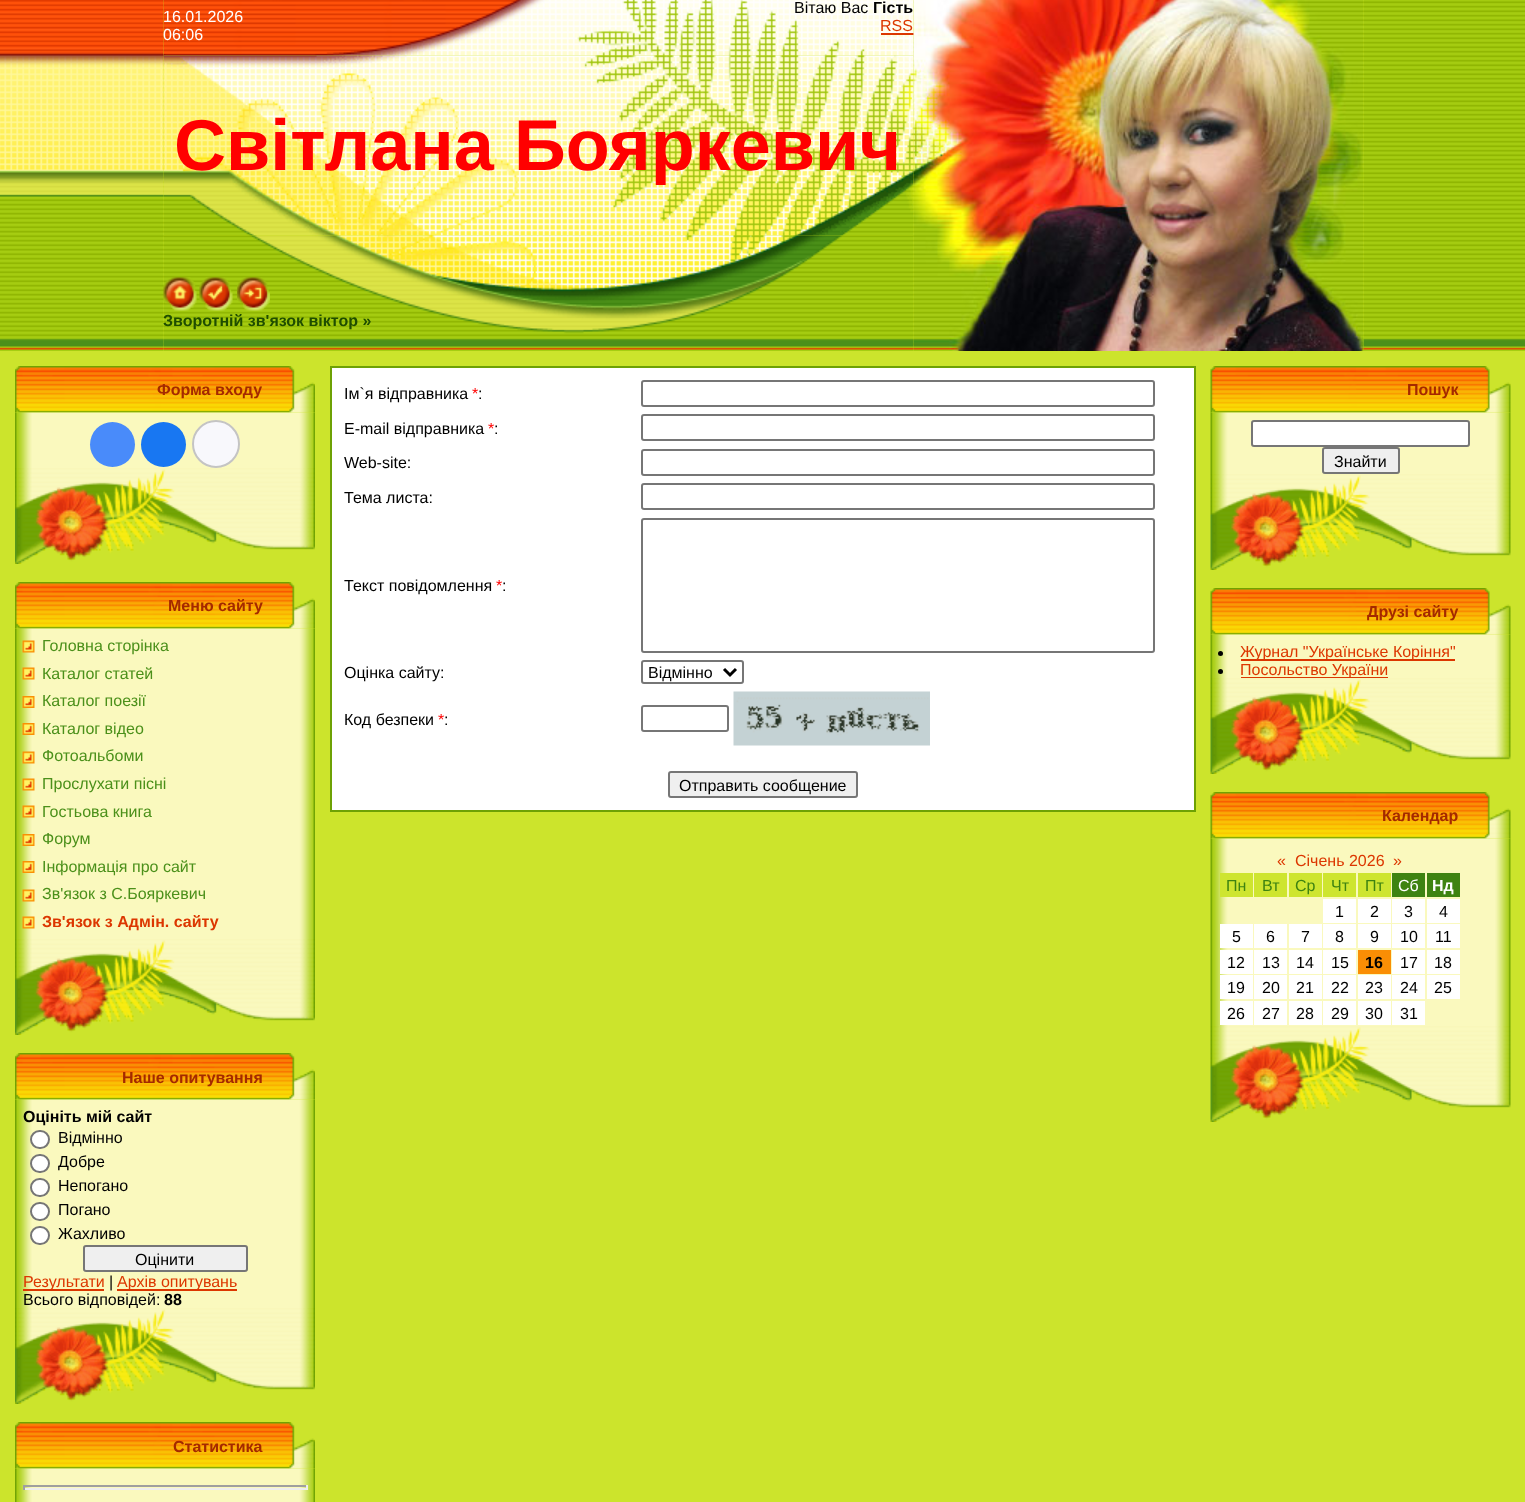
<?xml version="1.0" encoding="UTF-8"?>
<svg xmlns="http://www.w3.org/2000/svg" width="1525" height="1502">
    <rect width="100%" height="100%" fill="#CCE42C"/>
    <image x="163" y="1" width="1201" height="349" href="img_01.png"/>
    <image x="0" y="0" width="164" height="351" href="img_02.png"/>
    <image x="163" y="0" width="751" height="56" href="img_03.png"/>
    <text font-family="Liberation Sans" font-size="16" fill="#FFFFFF">
        <tspan x="163" y="22">16.01.2026</tspan>
        <tspan x="163" y="40">06:06</tspan>
    </text>
    <text x="794" y="13" font-family="Liberation Sans" font-size="16" fill="#000000">Вітаю Вас</text>
    <text x="873" y="13" font-family="Liberation Sans" font-size="16" font-weight="700" fill="#000000">Гість</text>
    <text x="880" y="31" font-family="Liberation Sans" font-size="16" fill="#DC3700">RSS</text>
    <rect x="881" y="33" width="33" height="2" fill="#DC3700"/>
    <image x="1363" y="0" width="162" height="351" href="img_05.png"/>
    <image x="163" y="55" width="751" height="181" href="img_06.png"/>
    <image x="163" y="235" width="751" height="116" href="img_07.png"/>
    <image x="913" y="0" width="451" height="351" href="img_04.png"/>
    <text x="174" y="170" font-family="Liberation Sans" font-size="72" font-weight="700" fill="#FF0000">Світлана Бояркевич</text>
    <image x="163" y="277" width="34" height="34" href="img_08.png"/>
    <image x="199" y="277" width="34" height="34" href="img_09.png"/>
    <image x="237" y="277" width="33" height="34" href="img_10.png"/>
    <text x="163" y="326" font-family="Liberation Sans" font-size="16" font-weight="700" fill="#1F4D00">Зворотній зв'язок вiктор »</text>
    <image x="15" y="366" width="300" height="47" href="img_11.png"/>
    <text x="157" y="395" font-family="Liberation Sans" font-size="16" font-weight="700" fill="#A42900">Форма входу</text>
    <image x="15" y="412" width="300" height="56" href="img_12.png"/>
    <circle cx="112.5" cy="444.5" r="22.5" fill="#498BFA"/>
    <circle cx="163.5" cy="444.5" r="22.5" fill="#1877F2"/>
    <circle cx="216" cy="444" r="23" fill="#F8F8FC" stroke="#C4C4C4" stroke-width="2"/>
    <image x="15" y="468" width="300" height="96" href="img_13.png"/>
    <image x="15" y="582" width="300" height="47" href="img_11.png"/>
    <text x="168" y="611" font-family="Liberation Sans" font-size="16" font-weight="700" fill="#A42900">Меню сайту</text>
    <image x="15" y="628" width="300" height="311" href="img_14.png"/>
    <image x="22" y="640" width="13" height="13" href="img_15.png"/>
    <text x="42" y="651" font-family="Liberation Sans" font-size="16" fill="#4B901A">Головна сторінка</text>
    <image x="22" y="667" width="13" height="13" href="img_15.png"/>
    <text x="42" y="679" font-family="Liberation Sans" font-size="16" fill="#4B901A">Каталог статей</text>
    <image x="22" y="696" width="13" height="12" href="img_16.png"/>
    <text x="42" y="706" font-family="Liberation Sans" font-size="16" fill="#4B901A">Каталог поезії</text>
    <image x="22" y="723" width="13" height="12" href="img_16.png"/>
    <text x="42" y="734" font-family="Liberation Sans" font-size="16" fill="#4B901A">Каталог відео</text>
    <image x="22" y="751" width="13" height="13" href="img_15.png"/>
    <text x="42" y="761" font-family="Liberation Sans" font-size="16" fill="#4B901A">Фотоальбоми</text>
    <image x="22" y="778" width="13" height="13" href="img_15.png"/>
    <text x="42" y="789" font-family="Liberation Sans" font-size="16" fill="#4B901A">Прослухати пісні</text>
    <image x="22" y="805" width="13" height="13" href="img_15.png"/>
    <text x="42" y="817" font-family="Liberation Sans" font-size="16" fill="#4B901A">Гостьова книга</text>
    <image x="22" y="834" width="13" height="12" href="img_16.png"/>
    <text x="42" y="844" font-family="Liberation Sans" font-size="16" fill="#4B901A">Форум</text>
    <image x="22" y="861" width="13" height="12" href="img_16.png"/>
    <text x="42" y="872" font-family="Liberation Sans" font-size="16" fill="#4B901A">Інформація про сайт</text>
    <image x="22" y="889" width="13" height="13" href="img_15.png"/>
    <text x="42" y="899" font-family="Liberation Sans" font-size="16" fill="#4B901A">Зв'язок з С.Бояркевич</text>
    <image x="22" y="916" width="13" height="13" href="img_15.png"/>
    <text x="42" y="927" font-family="Liberation Sans" font-size="16" font-weight="700" fill="#DC3700">Зв'язок з Адмiн. сайту</text>
    <image x="15" y="939" width="300" height="96" href="img_13.png"/>
    <image x="15" y="1053" width="300" height="47" href="img_11.png"/>
    <text x="122" y="1083" font-family="Liberation Sans" font-size="16" font-weight="700" fill="#A42900">Наше опитування</text>
    <image x="15" y="1099" width="300" height="209" href="img_17.png"/>
    <text x="23" y="1122" font-family="Liberation Sans" font-size="16" font-weight="700" fill="#000000">Оцініть мій сайт</text>
    <rect x="31" y="1131" width="18" height="17" rx="8.5" fill="#FFFFFF" stroke="#767676" stroke-width="2"/>
    <text x="58" y="1143" font-family="Liberation Sans" font-size="16" fill="#000000">Відмінно</text>
    <rect x="31" y="1155" width="18" height="17" rx="8.5" fill="#FFFFFF" stroke="#767676" stroke-width="2"/>
    <text x="58" y="1167" font-family="Liberation Sans" font-size="16" fill="#000000">Добре</text>
    <rect x="31" y="1179" width="18" height="17" rx="8.5" fill="#FFFFFF" stroke="#767676" stroke-width="2"/>
    <text x="58" y="1191" font-family="Liberation Sans" font-size="16" fill="#000000">Непогано</text>
    <rect x="31" y="1203" width="18" height="17" rx="8.5" fill="#FFFFFF" stroke="#767676" stroke-width="2"/>
    <text x="58" y="1215" font-family="Liberation Sans" font-size="16" fill="#000000">Погано</text>
    <rect x="31" y="1227" width="18" height="17" rx="8.5" fill="#FFFFFF" stroke="#767676" stroke-width="2"/>
    <text x="58" y="1239" font-family="Liberation Sans" font-size="16" fill="#000000">Жахливо</text>
    <rect x="84" y="1246" width="163" height="25" rx="2" fill="#EFEFEF" stroke="#767676" stroke-width="2"/>
    <text x="135" y="1265" font-family="Liberation Sans" font-size="16" fill="#000000">Оцінити</text>
    <rect x="23" y="1289" width="81" height="2" fill="#DC3700"/>
    <text x="23" y="1287" font-family="Liberation Sans" font-size="16" fill="#DC3700">Результати</text>
    <text x="109" y="1287" font-family="Liberation Sans" font-size="16" fill="#000000">|</text>
    <rect x="117" y="1289" width="120" height="2" fill="#DC3700"/>
    <text x="117" y="1287" font-family="Liberation Sans" font-size="16" fill="#DC3700">Архів опитувань</text>
    <text x="23" y="1305" font-family="Liberation Sans" font-size="16" fill="#000000">Всього відповідей:</text>
    <text x="164" y="1305" font-family="Liberation Sans" font-size="16" font-weight="700" fill="#000000">88</text>
    <image x="15" y="1308" width="300" height="96" href="img_13.png"/>
    <image x="15" y="1422" width="300" height="47" href="img_11.png"/>
    <text x="173" y="1452" font-family="Liberation Sans" font-size="16" font-weight="700" fill="#A42900">Статистика</text>
    <image x="15" y="1468" width="300" height="34" href="img_18.png"/>
    <rect x="23" y="1485" width="285" height="2" fill="#9F9F9F"/>
    <rect x="306" y="1485" width="2" height="5" fill="#EEEEEE"/>
    <rect x="23" y="1488" width="285" height="2" fill="#EEEEEE"/>
    <rect x="23" y="1485" width="2" height="5" fill="#9F9F9F"/>
    <rect x="331" y="367" width="864" height="444" fill="none" stroke="#6DA104" stroke-width="2"/>
    <rect x="332" y="368" width="862" height="442" fill="#FFFFFF"/>
    <text x="344" y="399" font-family="Liberation Sans" font-size="16" fill="#000000">Ім`я відправника</text>
    <text x="472" y="399" font-family="Liberation Sans" font-size="16" fill="#FF0000">*</text>
    <text x="478" y="399" font-family="Liberation Sans" font-size="16" fill="#000000">:</text>
    <rect x="642" y="381" width="512" height="25" rx="2" fill="none" stroke="#767676" stroke-width="2"/>
    <text x="344" y="434" font-family="Liberation Sans" font-size="16" fill="#000000">E-mail відправника</text>
    <text x="488" y="434" font-family="Liberation Sans" font-size="16" fill="#FF0000">*</text>
    <text x="494" y="434" font-family="Liberation Sans" font-size="16" fill="#000000">:</text>
    <rect x="642" y="415" width="512" height="25" rx="2" fill="none" stroke="#767676" stroke-width="2"/>
    <text x="344" y="468" font-family="Liberation Sans" font-size="16" fill="#000000">Web-site:</text>
    <rect x="642" y="450" width="512" height="25" rx="2" fill="none" stroke="#767676" stroke-width="2"/>
    <text x="344" y="503" font-family="Liberation Sans" font-size="16" fill="#000000">Тема листа:</text>
    <rect x="642" y="484" width="512" height="25" rx="2" fill="none" stroke="#767676" stroke-width="2"/>
    <text x="344" y="591" font-family="Liberation Sans" font-size="16" fill="#000000">Текст повідомлення</text>
    <text x="496" y="591" font-family="Liberation Sans" font-size="16" fill="#FF0000">*</text>
    <text x="502" y="591" font-family="Liberation Sans" font-size="16" fill="#000000">:</text>
    <rect x="642" y="519" width="512" height="133" rx="2" fill="none" stroke="#767676" stroke-width="2"/>
    <text x="344" y="678" font-family="Liberation Sans" font-size="16" fill="#000000">Оцінка сайту:</text>
    <rect x="642" y="661" width="101" height="22" rx="2" fill="none" stroke="#767676" stroke-width="2"/>
    <path d="M 724 669 L 730 675 L 736 669" fill="none" stroke="#000000" stroke-width="3"/>
    <text x="648" y="678" font-family="Liberation Sans" font-size="16" fill="#000000">Відмінно</text>
    <text x="344" y="725" font-family="Liberation Sans" font-size="16" fill="#000000">Код безпеки</text>
    <text x="438" y="725" font-family="Liberation Sans" font-size="16" fill="#FF0000">*</text>
    <text x="444" y="725" font-family="Liberation Sans" font-size="16" fill="#000000">:</text>
    <rect x="642" y="706" width="86" height="25" rx="2" fill="none" stroke="#767676" stroke-width="2"/>
    <image x="733" y="691" width="197" height="55" href="img_19.png"/>
    <rect x="669" y="772" width="188" height="25" rx="2" fill="#EFEFEF" stroke="#767676" stroke-width="2"/>
    <text x="679" y="791" font-family="Liberation Sans" font-size="16" fill="#000000">Отправить сообщение</text>
    <image x="1210" y="366" width="301" height="47" href="img_20.png"/>
    <text x="1407" y="395" font-family="Liberation Sans" font-size="16" font-weight="700" fill="#A42900">Пошук</text>
    <image x="1210" y="412" width="301" height="62" href="img_21.png"/>
    <rect x="1252" y="421" width="217" height="25" rx="2" fill="#FFFFFF" stroke="#767676" stroke-width="2"/>
    <rect x="1323" y="448" width="76" height="25" rx="2" fill="#EFEFEF" stroke="#767676" stroke-width="2"/>
    <text x="1334" y="467" font-family="Liberation Sans" font-size="16" fill="#000000">Знайти</text>
    <image x="1210" y="474" width="301" height="96" href="img_22.png"/>
    <image x="1210" y="588" width="301" height="47" href="img_20.png"/>
    <text x="1367" y="617" font-family="Liberation Sans" font-size="16" font-weight="700" fill="#A42900">Друзі сайту</text>
    <image x="1210" y="634" width="301" height="44" href="img_23.png"/>
    <circle cx="1220.5" cy="653.5" r="2.5" fill="#000000"/>
    <rect x="1241" y="659" width="214" height="2" fill="#DC3700"/>
    <text x="1240" y="657" font-family="Liberation Sans" font-size="16" fill="#DC3700">Журнал "Українське Коріння"</text>
    <circle cx="1220.5" cy="671.5" r="2.5" fill="#000000"/>
    <rect x="1241" y="677" width="147" height="1" fill="#DC3700"/>
    <text x="1240" y="675" font-family="Liberation Sans" font-size="16" fill="#DC3700">Посольство України</text>
    <image x="1210" y="678" width="301" height="96" href="img_22.png"/>
    <image x="1210" y="792" width="301" height="47" href="img_20.png"/>
    <text x="1382" y="821" font-family="Liberation Sans" font-size="16" font-weight="700" fill="#A42900">Календар</text>
    <image x="1210" y="838" width="301" height="188" href="img_24.png"/>
    <text x="1277" y="866" font-family="Liberation Sans" font-size="16" fill="#DC3700">«</text>
    <text x="1295" y="866" font-family="Liberation Sans" font-size="16" fill="#DC3700">Січень 2026</text>
    <text x="1393" y="866" font-family="Liberation Sans" font-size="16" fill="#DC3700">»</text>
    <rect x="1220" y="873" width="33" height="24" fill="#CEE530"/>
    <text x="1226" y="891" font-family="Liberation Sans" font-size="16" fill="#3E8311">Пн</text>
    <rect x="1254" y="873" width="33" height="24" fill="#CEE530"/>
    <text x="1262" y="891" font-family="Liberation Sans" font-size="16" fill="#3E8311">Вт</text>
    <rect x="1289" y="873" width="33" height="24" fill="#CEE530"/>
    <text x="1295" y="891" font-family="Liberation Sans" font-size="16" fill="#3E8311">Ср</text>
    <rect x="1323" y="873" width="33" height="24" fill="#CEE530"/>
    <text x="1331" y="891" font-family="Liberation Sans" font-size="16" fill="#3E8311">Чт</text>
    <rect x="1358" y="873" width="33" height="24" fill="#CEE530"/>
    <text x="1365" y="891" font-family="Liberation Sans" font-size="16" fill="#3E8311">Пт</text>
    <rect x="1392" y="873" width="33" height="24" fill="#3E8311"/>
    <text x="1398" y="891" font-family="Liberation Sans" font-size="16" fill="#FFFFFF">Сб</text>
    <rect x="1427" y="873" width="33" height="24" fill="#3E8311"/>
    <text x="1432" y="891" font-family="Liberation Sans" font-size="16" font-weight="700" fill="#FFFFFF">Нд</text>
    <rect x="1323" y="899" width="33" height="24" fill="#FFFFFF"/>
    <text x="1335" y="917" font-family="Liberation Sans" font-size="16" fill="#000000">1</text>
    <rect x="1358" y="899" width="33" height="24" fill="#FFFFFF"/>
    <text x="1370" y="917" font-family="Liberation Sans" font-size="16" fill="#000000">2</text>
    <rect x="1392" y="899" width="33" height="24" fill="#FFFFFF"/>
    <text x="1404" y="917" font-family="Liberation Sans" font-size="16" fill="#000000">3</text>
    <rect x="1427" y="899" width="33" height="24" fill="#FFFFFF"/>
    <text x="1439" y="917" font-family="Liberation Sans" font-size="16" fill="#000000">4</text>
    <rect x="1220" y="924" width="33" height="24" fill="#FFFFFF"/>
    <text x="1232" y="942" font-family="Liberation Sans" font-size="16" fill="#000000">5</text>
    <rect x="1254" y="924" width="33" height="24" fill="#FFFFFF"/>
    <text x="1266" y="942" font-family="Liberation Sans" font-size="16" fill="#000000">6</text>
    <rect x="1289" y="924" width="33" height="24" fill="#FFFFFF"/>
    <text x="1301" y="942" font-family="Liberation Sans" font-size="16" fill="#000000">7</text>
    <rect x="1323" y="924" width="33" height="24" fill="#FFFFFF"/>
    <text x="1335" y="942" font-family="Liberation Sans" font-size="16" fill="#000000">8</text>
    <rect x="1358" y="924" width="33" height="24" fill="#FFFFFF"/>
    <text x="1370" y="942" font-family="Liberation Sans" font-size="16" fill="#000000">9</text>
    <rect x="1392" y="924" width="33" height="24" fill="#FFFFFF"/>
    <text x="1400" y="942" font-family="Liberation Sans" font-size="16" fill="#000000">10</text>
    <rect x="1427" y="924" width="33" height="24" fill="#FFFFFF"/>
    <text x="1435" y="942" font-family="Liberation Sans" font-size="16" fill="#000000">11</text>
    <rect x="1220" y="950" width="33" height="24" fill="#FFFFFF"/>
    <text x="1227" y="968" font-family="Liberation Sans" font-size="16" fill="#000000">12</text>
    <rect x="1254" y="950" width="33" height="24" fill="#FFFFFF"/>
    <text x="1262" y="968" font-family="Liberation Sans" font-size="16" fill="#000000">13</text>
    <rect x="1289" y="950" width="33" height="24" fill="#FFFFFF"/>
    <text x="1296" y="968" font-family="Liberation Sans" font-size="16" fill="#000000">14</text>
    <rect x="1323" y="950" width="33" height="24" fill="#FFFFFF"/>
    <text x="1331" y="968" font-family="Liberation Sans" font-size="16" fill="#000000">15</text>
    <rect x="1358" y="950" width="33" height="24" fill="#FA8E05"/>
    <text x="1365" y="968" font-family="Liberation Sans" font-size="16" font-weight="700" fill="#000000">16</text>
    <rect x="1392" y="950" width="33" height="24" fill="#FFFFFF"/>
    <text x="1400" y="968" font-family="Liberation Sans" font-size="16" fill="#000000">17</text>
    <rect x="1427" y="950" width="33" height="24" fill="#FFFFFF"/>
    <text x="1434" y="968" font-family="Liberation Sans" font-size="16" fill="#000000">18</text>
    <rect x="1220" y="975" width="33" height="24" fill="#FFFFFF"/>
    <text x="1227" y="993" font-family="Liberation Sans" font-size="16" fill="#000000">19</text>
    <rect x="1254" y="975" width="33" height="24" fill="#FFFFFF"/>
    <text x="1262" y="993" font-family="Liberation Sans" font-size="16" fill="#000000">20</text>
    <rect x="1289" y="975" width="33" height="24" fill="#FFFFFF"/>
    <text x="1296" y="993" font-family="Liberation Sans" font-size="16" fill="#000000">21</text>
    <rect x="1323" y="975" width="33" height="24" fill="#FFFFFF"/>
    <text x="1331" y="993" font-family="Liberation Sans" font-size="16" fill="#000000">22</text>
    <rect x="1358" y="975" width="33" height="24" fill="#FFFFFF"/>
    <text x="1365" y="993" font-family="Liberation Sans" font-size="16" fill="#000000">23</text>
    <rect x="1392" y="975" width="33" height="24" fill="#FFFFFF"/>
    <text x="1400" y="993" font-family="Liberation Sans" font-size="16" fill="#000000">24</text>
    <rect x="1427" y="975" width="33" height="24" fill="#FFFFFF"/>
    <text x="1434" y="993" font-family="Liberation Sans" font-size="16" fill="#000000">25</text>
    <rect x="1220" y="1001" width="33" height="24" fill="#FFFFFF"/>
    <text x="1227" y="1019" font-family="Liberation Sans" font-size="16" fill="#000000">26</text>
    <rect x="1254" y="1001" width="33" height="24" fill="#FFFFFF"/>
    <text x="1262" y="1019" font-family="Liberation Sans" font-size="16" fill="#000000">27</text>
    <rect x="1289" y="1001" width="33" height="24" fill="#FFFFFF"/>
    <text x="1296" y="1019" font-family="Liberation Sans" font-size="16" fill="#000000">28</text>
    <rect x="1323" y="1001" width="33" height="24" fill="#FFFFFF"/>
    <text x="1331" y="1019" font-family="Liberation Sans" font-size="16" fill="#000000">29</text>
    <rect x="1358" y="1001" width="33" height="24" fill="#FFFFFF"/>
    <text x="1365" y="1019" font-family="Liberation Sans" font-size="16" fill="#000000">30</text>
    <rect x="1392" y="1001" width="33" height="24" fill="#FFFFFF"/>
    <text x="1400" y="1019" font-family="Liberation Sans" font-size="16" fill="#000000">31</text>
    <image x="1210" y="1026" width="301" height="96" href="img_22.png"/>
</svg>
